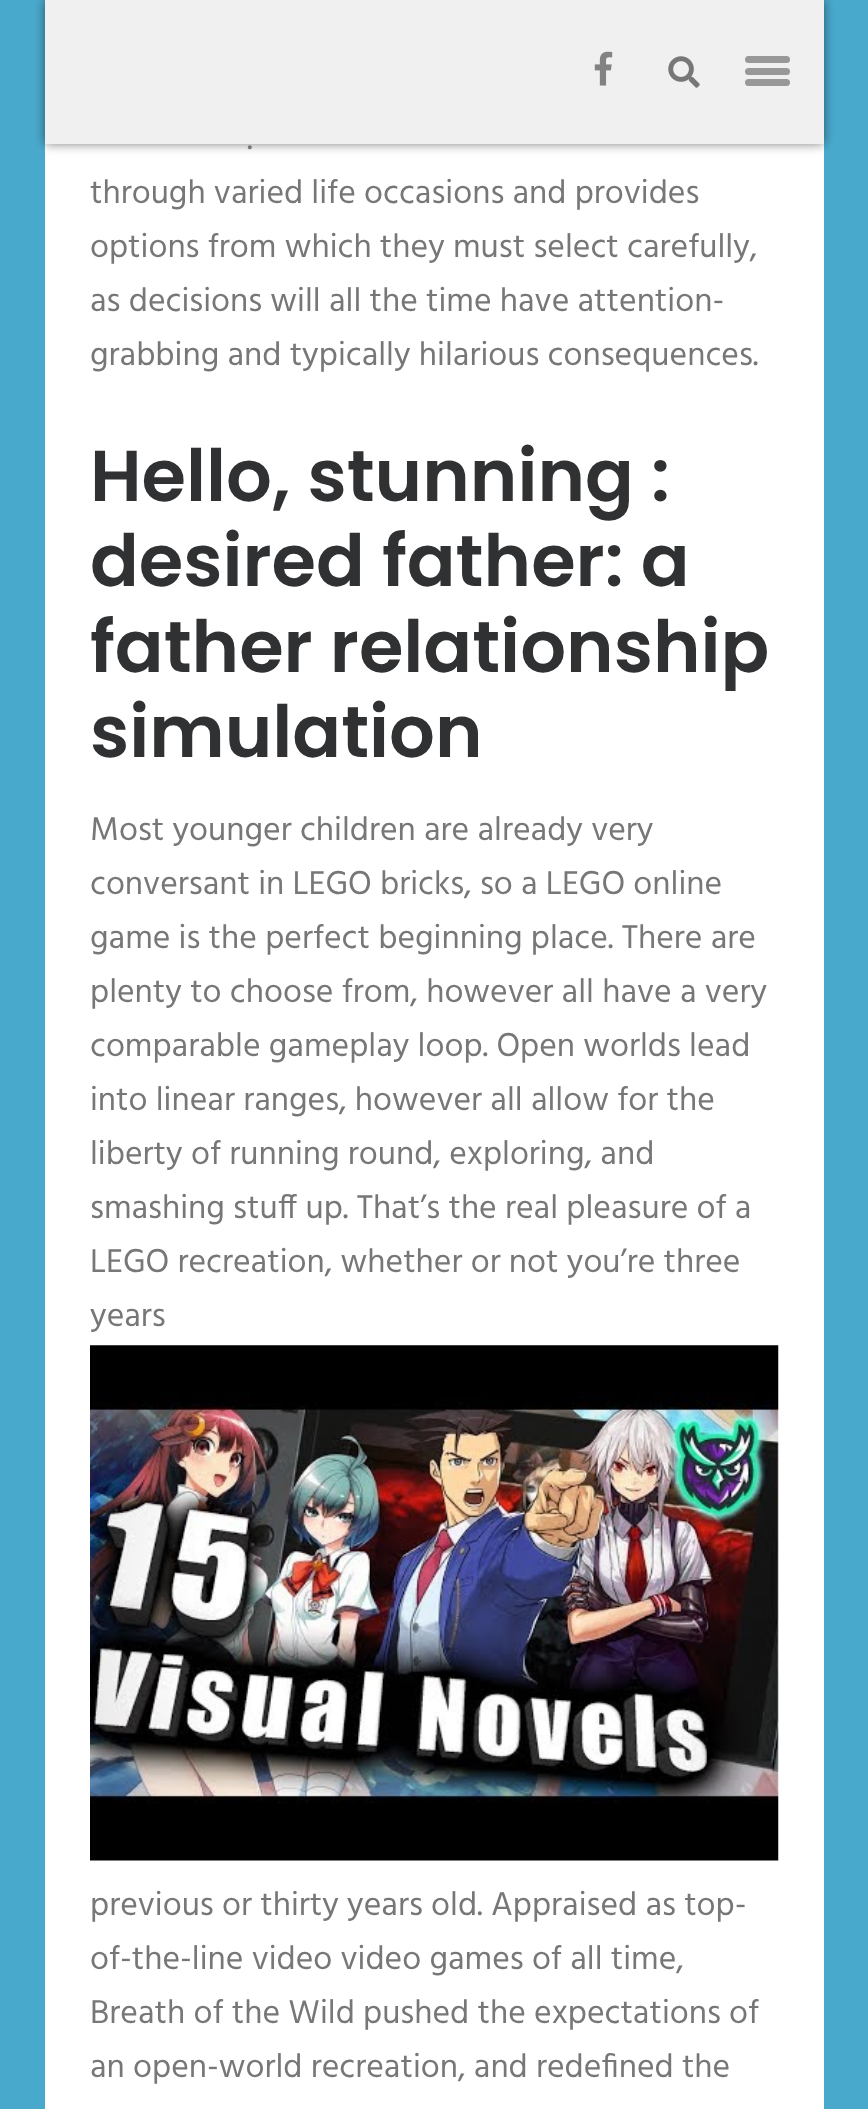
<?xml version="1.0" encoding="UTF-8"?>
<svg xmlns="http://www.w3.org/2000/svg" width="868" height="2109">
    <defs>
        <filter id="blur1" x="-50%" y="-200%" width="200%" height="500%"><feGaussianBlur stdDeviation="5.5"/></filter>
    </defs>
    <rect width="100%" height="100%" fill="#49A9CC"/>
    <rect x="45" y="144" width="779" height="1965" fill="#FFFFFF"/>
    <rect x="45" y="0" width="779" height="144" fill="#000000" fill-opacity="0.5" filter="url(#blur1)"/>
    <rect x="45" y="0" width="779" height="144" fill="#F0F0F0"/>
    <image x="594" y="51" width="19" height="35" href="img_01.png"/>
    <image x="668" y="56" width="32" height="32" href="img_02.png"/>
    <rect x="745" y="56" width="45" height="7" rx="3.5" fill="#989899"/>
    <rect x="745" y="68" width="45" height="7" rx="3.5" fill="#989899"/>
    <rect x="745" y="79" width="45" height="7" rx="3.5" fill="#989899"/>
    <text x="247" y="149" font-family="Hind" font-size="33.75" fill="#777777">.</text>
    <text font-family="Hind" font-size="33.75" fill="#777777">
        <tspan x="90" y="203">through varied life occasions and provides</tspan>
        <tspan x="90" y="257">options from which they must select carefully,</tspan>
        <tspan x="90" y="311">as decisions will all the time have attention-</tspan>
        <tspan x="90" y="365">grabbing and typically hilarious consequences.</tspan>
    </text>
    <text font-family="Poppins" font-size="72" font-weight="600" fill="#303133">
        <tspan x="90" y="501">Hello, stunning :</tspan>
        <tspan x="90" y="586">desired father: a</tspan>
        <tspan x="90" y="672">father relationship</tspan>
        <tspan x="90" y="757">simulation</tspan>
    </text>
    <text font-family="Hind" font-size="33.75" fill="#777777">
        <tspan x="90" y="840">Most younger children are already very</tspan>
        <tspan x="90" y="894">conversant in LEGO bricks, so a LEGO online</tspan>
        <tspan x="90" y="948">game is the perfect beginning place. There are</tspan>
        <tspan x="90" y="1002">plenty to choose from, however all have a very</tspan>
        <tspan x="90" y="1056">comparable gameplay loop. Open worlds lead</tspan>
        <tspan x="90" y="1110">into linear ranges, however all allow for the</tspan>
        <tspan x="90" y="1164">liberty of running round, exploring, and</tspan>
        <tspan x="90" y="1218">smashing stuff up. That’s the real pleasure of a</tspan>
        <tspan x="90" y="1272">LEGO recreation, whether or not you’re three</tspan>
        <tspan x="90" y="1326">years</tspan>
    </text>
    <image x="90" y="1345" width="689" height="516" href="img_03.png"/>
    <text font-family="Hind" font-size="33.75" fill="#777777">
        <tspan x="90" y="1915">previous or thirty years old. Appraised as top-</tspan>
        <tspan x="90" y="1969">of-the-line video video games of all time,</tspan>
        <tspan x="90" y="2023">Breath of the Wild pushed the expectations of</tspan>
        <tspan x="90" y="2077">an open-world recreation, and redefined the</tspan>
    </text>
</svg>
